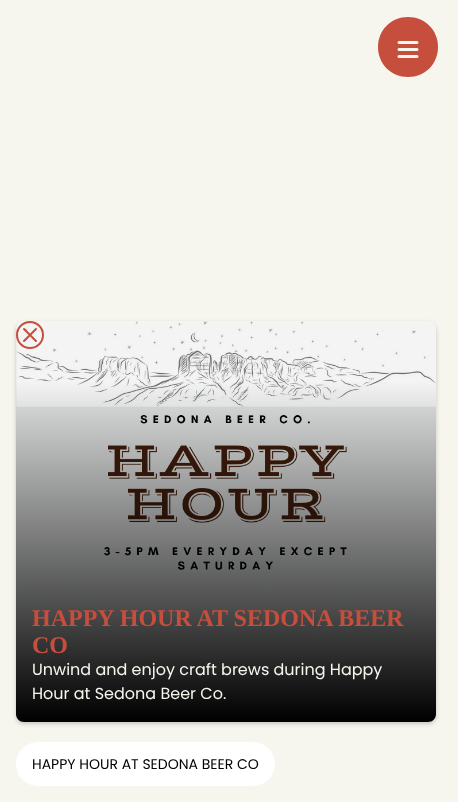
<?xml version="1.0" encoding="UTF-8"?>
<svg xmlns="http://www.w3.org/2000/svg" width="458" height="802">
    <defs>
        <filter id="blur1" x="-50%" y="-200%" width="200%" height="500%"><feGaussianBlur stdDeviation="2"/></filter>
        <linearGradient id="g1" gradientUnits="userSpaceOnUse" x1="226" y1="722" x2="226" y2="381"><stop offset="0" stop-color="#000000"/><stop offset="1" stop-color="#000000" stop-opacity="0"/></linearGradient>
    </defs>
    <rect width="100%" height="100%" fill="#F7F6EE"/>
    <path d="M 408 17 C 391 17 378 30 378 47 C 378 64 391 77 408 77 C 425 77 438 64 438 47 C 438 30 425 17 408 17 Z" fill="#C64E3D"/>
    <path d="M 399 42.5 H 417 M 399 49.5 H 417 M 399 56.5 H 417" fill="none" stroke="#F7F6EE" stroke-width="3" stroke-linecap="round"/>
    <rect x="16" y="323" width="420" height="401" rx="8" fill="#000000" fill-opacity="0.2" filter="url(#blur1)"/>
    <rect x="16" y="321" width="420" height="401" rx="8" fill="#F7F6EE"/>
    <image x="16" y="321" width="420" height="401" href="img_01.png"/>
    <circle cx="30" cy="335" r="13" fill="none" stroke="#C64E3D" stroke-width="2"/>
    <path d="M 24 341 L 36 329 M 24 329 L 36 341" fill="none" stroke="#C64E3D" stroke-width="2" stroke-linecap="round" stroke-linejoin="round"/>
    <path d="M 16 381 H 436 V 714 C 436 718.5 432.5 722 428 722 H 24 C 19.5 722 16 718.5 16 714 Z" fill="url(#g1)"/>
    <text font-family="Liberation Serif" font-size="24" font-weight="700" fill="#C64E3D">
        <tspan x="32" y="626">HAPPY HOUR AT SEDONA BEER</tspan>
        <tspan x="32" y="653">CO</tspan>
    </text>
    <text font-family="Poppins" font-size="16" fill="#F7F6EE">
        <tspan x="32" y="675">Unwind and enjoy craft brews during Happy</tspan>
        <tspan x="32" y="699">Hour at Sedona Beer Co.</tspan>
    </text>
    <rect x="16" y="742" width="259" height="44" rx="22" fill="#FFFFFF"/>
    <text x="32" y="769" font-family="Poppins" font-size="14" fill="#000000">HAPPY HOUR AT SEDONA BEER CO</text>
</svg>
